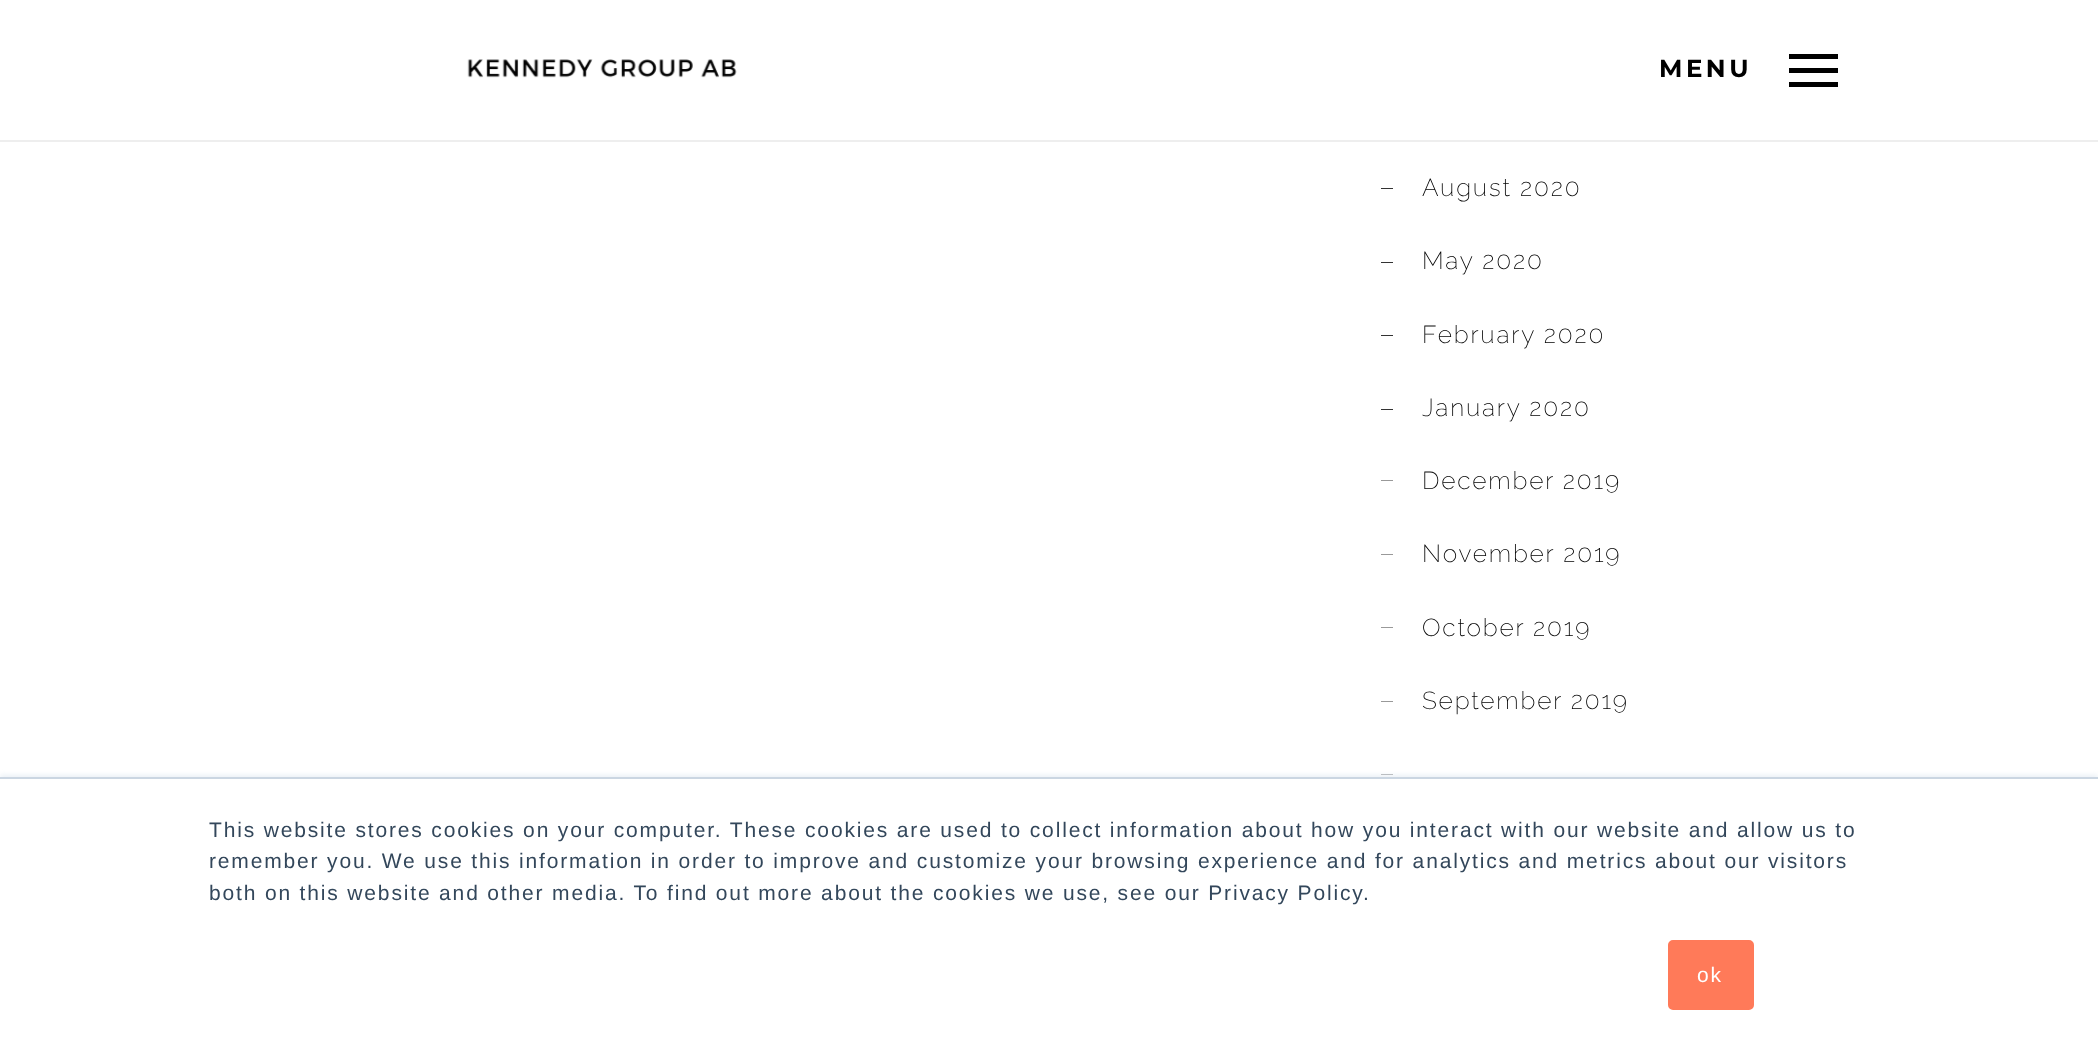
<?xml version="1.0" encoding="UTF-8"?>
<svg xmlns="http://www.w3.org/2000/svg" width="2098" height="1055">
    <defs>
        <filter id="blur1" x="-50%" y="-200%" width="200%" height="500%"><feGaussianBlur stdDeviation="2.5"/></filter>
    </defs>
    <rect width="100%" height="100%" fill="#FFFFFF"/>
    <rect x="0" y="140" width="2098" height="2" fill="#EEEEEE"/>
    <image x="467" y="59" width="270" height="19" href="img_01.png"/>
    <text x="1659" y="77" font-family="Montserrat" font-size="24.5" font-weight="700" letter-spacing="3.5" fill="#000000">MENU</text>
    <rect x="1789" y="68" width="49" height="5" fill="#000000"/>
    <rect x="1789" y="54" width="49" height="5" fill="#000000"/>
    <rect x="1789" y="82" width="49" height="5" fill="#000000"/>
    <rect x="1381" y="188" width="12" height="1" fill="#333333"/>
    <text x="1422" y="196" font-family="Raleway" font-size="24.5" font-weight="200" letter-spacing="1.84" fill="#000000">August 2020</text>
    <rect x="1381" y="262" width="12" height="1" fill="#333333"/>
    <text x="1422" y="269" font-family="Raleway" font-size="24.5" font-weight="200" letter-spacing="1.84" fill="#000000">May 2020</text>
    <rect x="1381" y="335" width="12" height="1" fill="#333333"/>
    <text x="1422" y="343" font-family="Raleway" font-size="24.5" font-weight="200" letter-spacing="1.84" fill="#000000">February 2020</text>
    <rect x="1381" y="409" width="12" height="1" fill="#333333"/>
    <text x="1422" y="416" font-family="Raleway" font-size="24.5" font-weight="200" letter-spacing="1.84" fill="#000000">January 2020</text>
    <path d="M 1393 481 H 1381 V 480.5 H 1393 Z" fill="#333333"/>
    <text x="1422" y="489" font-family="Raleway" font-size="24.5" font-weight="200" letter-spacing="1.84" fill="#000000">December 2019</text>
    <path d="M 1393 554.5 H 1381 V 554 H 1393 Z" fill="#333333"/>
    <text x="1422" y="562" font-family="Raleway" font-size="24.5" font-weight="200" letter-spacing="1.84" fill="#000000">November 2019</text>
    <path d="M 1393 628 H 1381 V 627.5 H 1393 Z" fill="#333333"/>
    <text x="1422" y="636" font-family="Raleway" font-size="24.5" font-weight="200" letter-spacing="1.84" fill="#000000">October 2019</text>
    <path d="M 1393 701.5 H 1381 V 701 H 1393 Z" fill="#333333"/>
    <text x="1422" y="709" font-family="Raleway" font-size="24.5" font-weight="200" letter-spacing="1.84" fill="#000000">September 2019</text>
    <path d="M 1393 775 H 1381 V 774.5 H 1393 Z" fill="#333333"/>
    <rect x="0" y="775" width="2098" height="279" fill="#EAF0F6" filter="url(#blur1)"/>
    <rect x="0" y="779" width="2098" height="276" fill="#FFFFFF"/>
    <rect x="0" y="777" width="2098" height="2" fill="#CBD6E2"/>
    <text font-family="Liberation Sans" font-size="21" letter-spacing="1.84" fill="#33475B">
        <tspan x="209" y="837">This website stores cookies on your computer. These cookies are used to collect information about how you interact with our website and allow us to</tspan>
        <tspan x="209" y="868">remember you. We use this information in order to improve and customize your browsing experience and for analytics and metrics about our visitors</tspan>
        <tspan x="209" y="900">both on this website and other media. To find out more about the cookies we use, see our Privacy Policy.</tspan>
    </text>
    <rect x="1669" y="941" width="84" height="68" rx="4" fill="#FF7A59" stroke="#FF7A59" stroke-width="2"/>
    <text x="1697" y="982" font-family="Liberation Sans" font-size="21" letter-spacing="1.84" fill="#FFFFFF">ok</text>
</svg>
